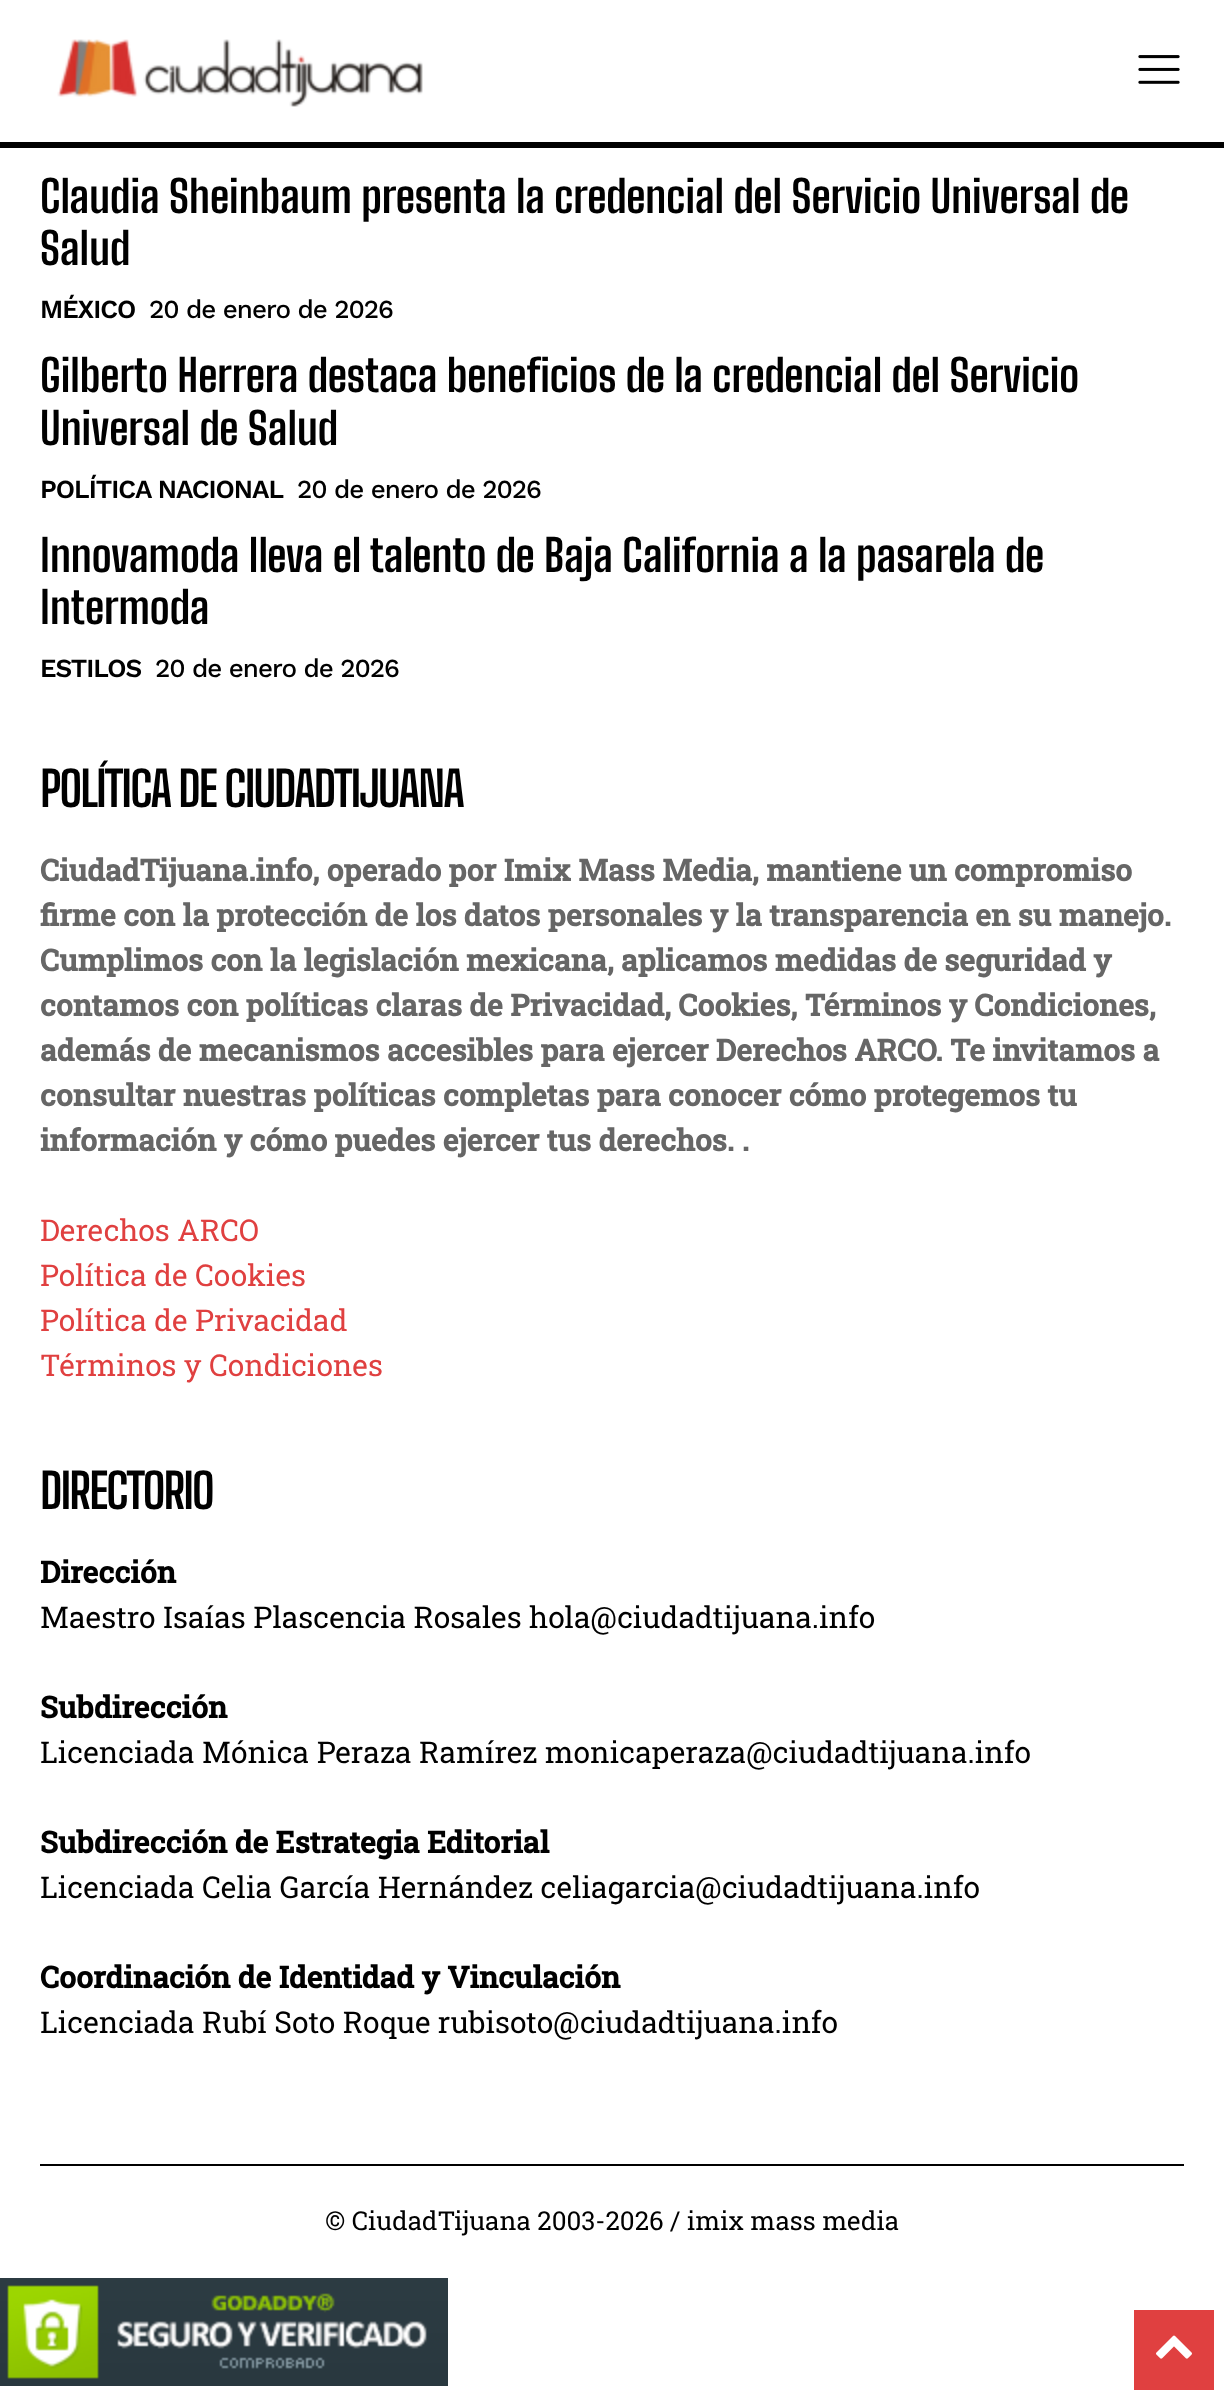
<?xml version="1.0" encoding="UTF-8"?>
<svg xmlns="http://www.w3.org/2000/svg" width="1224" height="2397">
    <rect width="100%" height="100%" fill="#FFFFFF"/>
    <rect x="0" y="142" width="1224" height="6" fill="#000000"/>
    <image x="57" y="39" width="366" height="68" href="img_01.png"/>
    <image x="1138" y="55" width="42" height="29" href="img_02.png"/>
    <text font-family="Big Shoulders Text" font-size="44" font-weight="700" fill="#000000">
        <tspan x="40" y="213">Claudia Sheinbaum presenta la credencial del Servicio Universal de</tspan>
        <tspan x="40" y="265">Salud</tspan>
    </text>
    <text x="40" y="318" font-family="Work Sans" font-size="26" font-weight="600" letter-spacing="-1" fill="#000000">MÉXICO</text>
    <text x="149" y="318" font-family="Work Sans" font-size="26" font-weight="500" letter-spacing="-1" fill="#000000">20 de enero de 2026</text>
    <text font-family="Big Shoulders Text" font-size="44" font-weight="700" fill="#000000">
        <tspan x="40" y="392">Gilberto Herrera destaca beneficios de la credencial del Servicio</tspan>
        <tspan x="40" y="445">Universal de Salud</tspan>
    </text>
    <text x="40" y="498" font-family="Work Sans" font-size="26" font-weight="600" letter-spacing="-1" fill="#000000">POLÍTICA NACIONAL</text>
    <text x="297" y="498" font-family="Work Sans" font-size="26" font-weight="500" letter-spacing="-1" fill="#000000">20 de enero de 2026</text>
    <text font-family="Big Shoulders Text" font-size="44" font-weight="700" fill="#000000">
        <tspan x="40" y="572">Innovamoda lleva el talento de Baja California a la pasarela de</tspan>
        <tspan x="40" y="624">Intermoda</tspan>
    </text>
    <text x="40" y="677" font-family="Work Sans" font-size="26" font-weight="600" letter-spacing="-1" fill="#000000">ESTILOS</text>
    <text x="155" y="677" font-family="Work Sans" font-size="26" font-weight="500" letter-spacing="-1" fill="#000000">20 de enero de 2026</text>
    <text x="40" y="807" font-family="Big Shoulders Text" font-size="48" font-weight="700" letter-spacing="-2" fill="#000000">POLÍTICA DE CIUDADTIJUANA</text>
    <text font-family="Roboto Slab" font-size="30" font-weight="700" fill="#666666">
        <tspan x="40" y="881">CiudadTijuana.info, operado por Imix Mass Media, mantiene un compromiso</tspan>
        <tspan x="40" y="926">firme con la protección de los datos personales y la transparencia en su manejo.</tspan>
        <tspan x="40" y="971">Cumplimos con la legislación mexicana, aplicamos medidas de seguridad y</tspan>
        <tspan x="40" y="1016">contamos con políticas claras de Privacidad, Cookies, Términos y Condiciones,</tspan>
        <tspan x="40" y="1061">además de mecanismos accesibles para ejercer Derechos ARCO. Te invitamos a</tspan>
        <tspan x="40" y="1106">consultar nuestras políticas completas para conocer cómo protegemos tu</tspan>
        <tspan x="40" y="1151">información y cómo puedes ejercer tus derechos. .</tspan>
    </text>
    <text font-family="Roboto Slab" font-size="30" fill="#E04040">
        <tspan x="40" y="1241">Derechos ARCO</tspan>
        <tspan x="40" y="1286">Política de Cookies</tspan>
        <tspan x="40" y="1331">Política de Privacidad</tspan>
        <tspan x="40" y="1376">Términos y Condiciones</tspan>
    </text>
    <text x="40" y="1509" font-family="Big Shoulders Text" font-size="48" font-weight="700" letter-spacing="-2" fill="#000000">DIRECTORIO</text>
    <text x="40" y="1583" font-family="Roboto Slab" font-size="30" font-weight="700" fill="#000000">Dirección</text>
    <text x="40" y="1628" font-family="Roboto Slab" font-size="30" fill="#000000">Maestro Isaías Plascencia Rosales hola@ciudadtijuana.info</text>
    <text x="40" y="1718" font-family="Roboto Slab" font-size="30" font-weight="700" fill="#000000">Subdirección</text>
    <text x="40" y="1763" font-family="Roboto Slab" font-size="30" fill="#000000">Licenciada Mónica Peraza Ramírez monicaperaza@ciudadtijuana.info</text>
    <text x="40" y="1853" font-family="Roboto Slab" font-size="30" font-weight="700" fill="#000000">Subdirección de Estrategia Editorial</text>
    <text x="40" y="1898" font-family="Roboto Slab" font-size="30" fill="#000000">Licenciada Celia García Hernández celiagarcia@ciudadtijuana.info</text>
    <text x="40" y="1988" font-family="Roboto Slab" font-size="30" font-weight="700" fill="#000000">Coordinación de Identidad y Vinculación</text>
    <text x="40" y="2033" font-family="Roboto Slab" font-size="30" fill="#000000">Licenciada Rubí Soto Roque rubisoto@ciudadtijuana.info</text>
    <rect x="40" y="2164" width="1144" height="2" fill="#000000"/>
    <text x="325" y="2230" font-family="Roboto Slab" font-size="26" fill="#000000">© CiudadTijuana 2003-2026 / imix mass media</text>
    <image x="0" y="2278" width="448" height="108" href="img_03.png"/>
    <rect x="1134" y="2310" width="80" height="80" fill="#E04040"/>
    <image x="1156" y="2335" width="36" height="24" href="img_04.png"/>
</svg>
